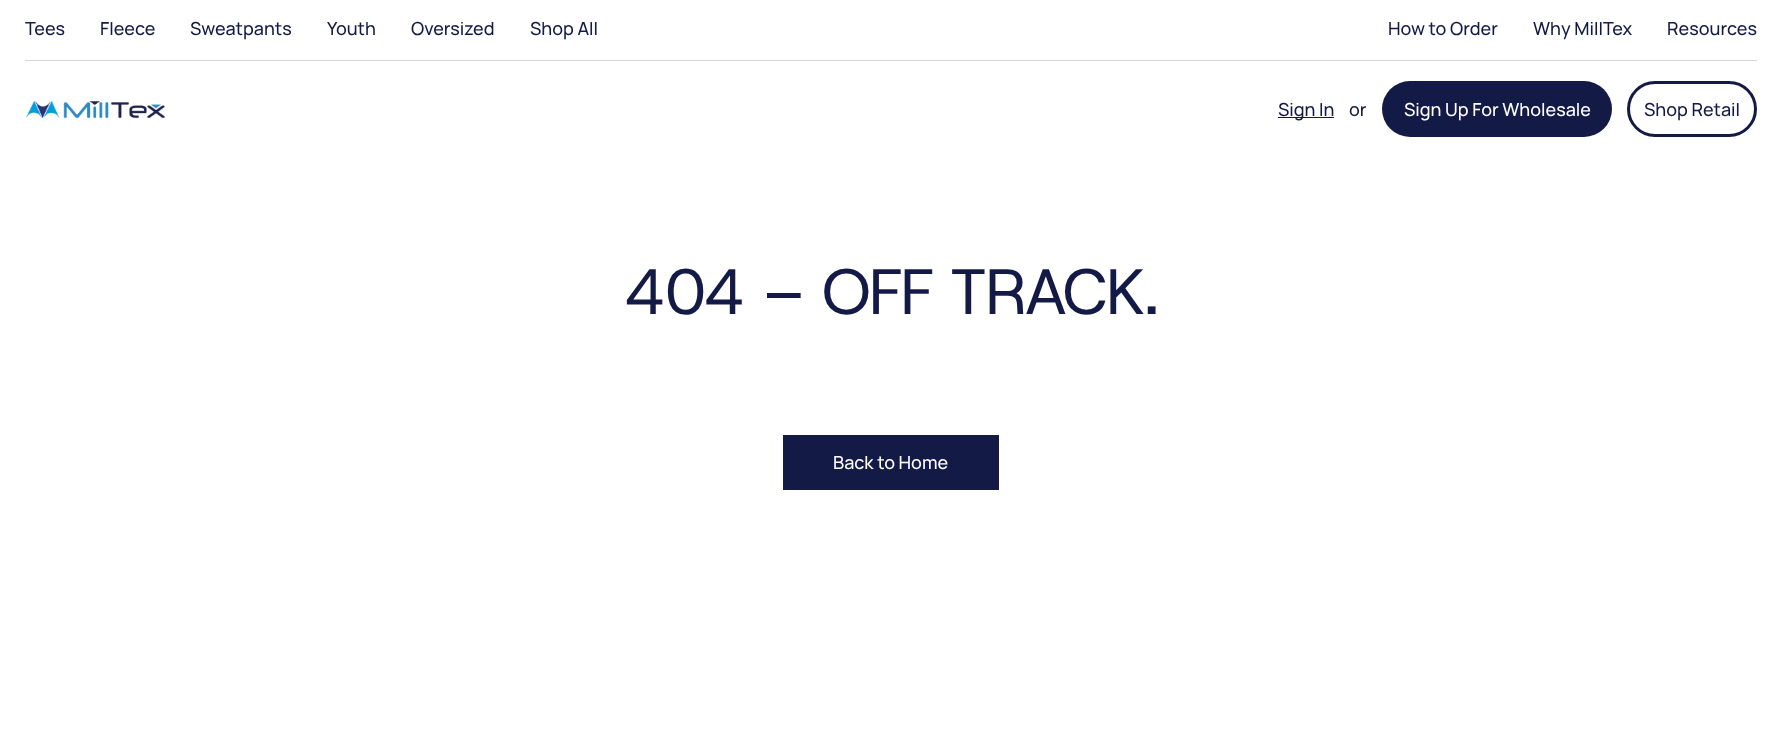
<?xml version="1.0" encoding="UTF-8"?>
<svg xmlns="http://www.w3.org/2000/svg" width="1782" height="744">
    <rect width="100%" height="100%" fill="#FFFFFF"/>
    <text x="25" y="35" font-family="Manrope" font-size="18" font-weight="500" fill="#141A46">Tees</text>
    <text x="100" y="35" font-family="Manrope" font-size="18" font-weight="500" fill="#141A46">Fleece</text>
    <text x="190" y="35" font-family="Manrope" font-size="18" font-weight="500" fill="#141A46">Sweatpants</text>
    <text x="327" y="35" font-family="Manrope" font-size="18" font-weight="500" fill="#141A46">Youth</text>
    <text x="411" y="35" font-family="Manrope" font-size="18" font-weight="500" fill="#141A46">Oversized</text>
    <text x="530" y="35" font-family="Manrope" font-size="18" font-weight="500" fill="#141A46">Shop All</text>
    <text x="1388" y="35" font-family="Manrope" font-size="18" font-weight="500" fill="#141A46">How to Order</text>
    <text x="1533" y="35" font-family="Manrope" font-size="18" font-weight="500" fill="#141A46">Why MillTex</text>
    <text x="1667" y="35" font-family="Manrope" font-size="18" font-weight="500" fill="#141A46">Resources</text>
    <rect x="25" y="60" width="1732" height="1" fill="#D6D6D6"/>
    <image x="25" y="100" width="140" height="19" href="img_01.png"/>
    <rect x="1278" y="117" width="56" height="1" fill="#141A46"/>
    <text x="1278" y="116" font-family="Manrope" font-size="18" font-weight="500" fill="#141A46">Sign In</text>
    <text x="1349" y="116" font-family="Manrope" font-size="18" font-weight="500" fill="#141A46">or</text>
    <rect x="1382" y="81" width="230" height="56" rx="28" fill="#141A46"/>
    <text x="1404" y="116" font-family="Manrope" font-size="18" font-weight="500" fill="#FFFFFF">Sign Up For Wholesale</text>
    <rect x="1628.5" y="82.5" width="127" height="53" rx="26.5" fill="none" stroke="#141A46" stroke-width="3"/>
    <text x="1644" y="116" font-family="Manrope" font-size="18" font-weight="500" fill="#141A46">Shop Retail</text>
    <text x="625" y="314" font-family="Host Grotesk" font-size="64" letter-spacing="-1.9" fill="#141A46">404 – OFF TRACK.</text>
    <rect x="784" y="436" width="214" height="53" fill="#141A46"/>
    <rect x="783.5" y="435.5" width="215" height="54" fill="none" stroke="#181D3E"/>
    <text x="833" y="469" font-family="Manrope" font-size="18" font-weight="500" fill="#FFFFFF">Back to Home</text>
</svg>
